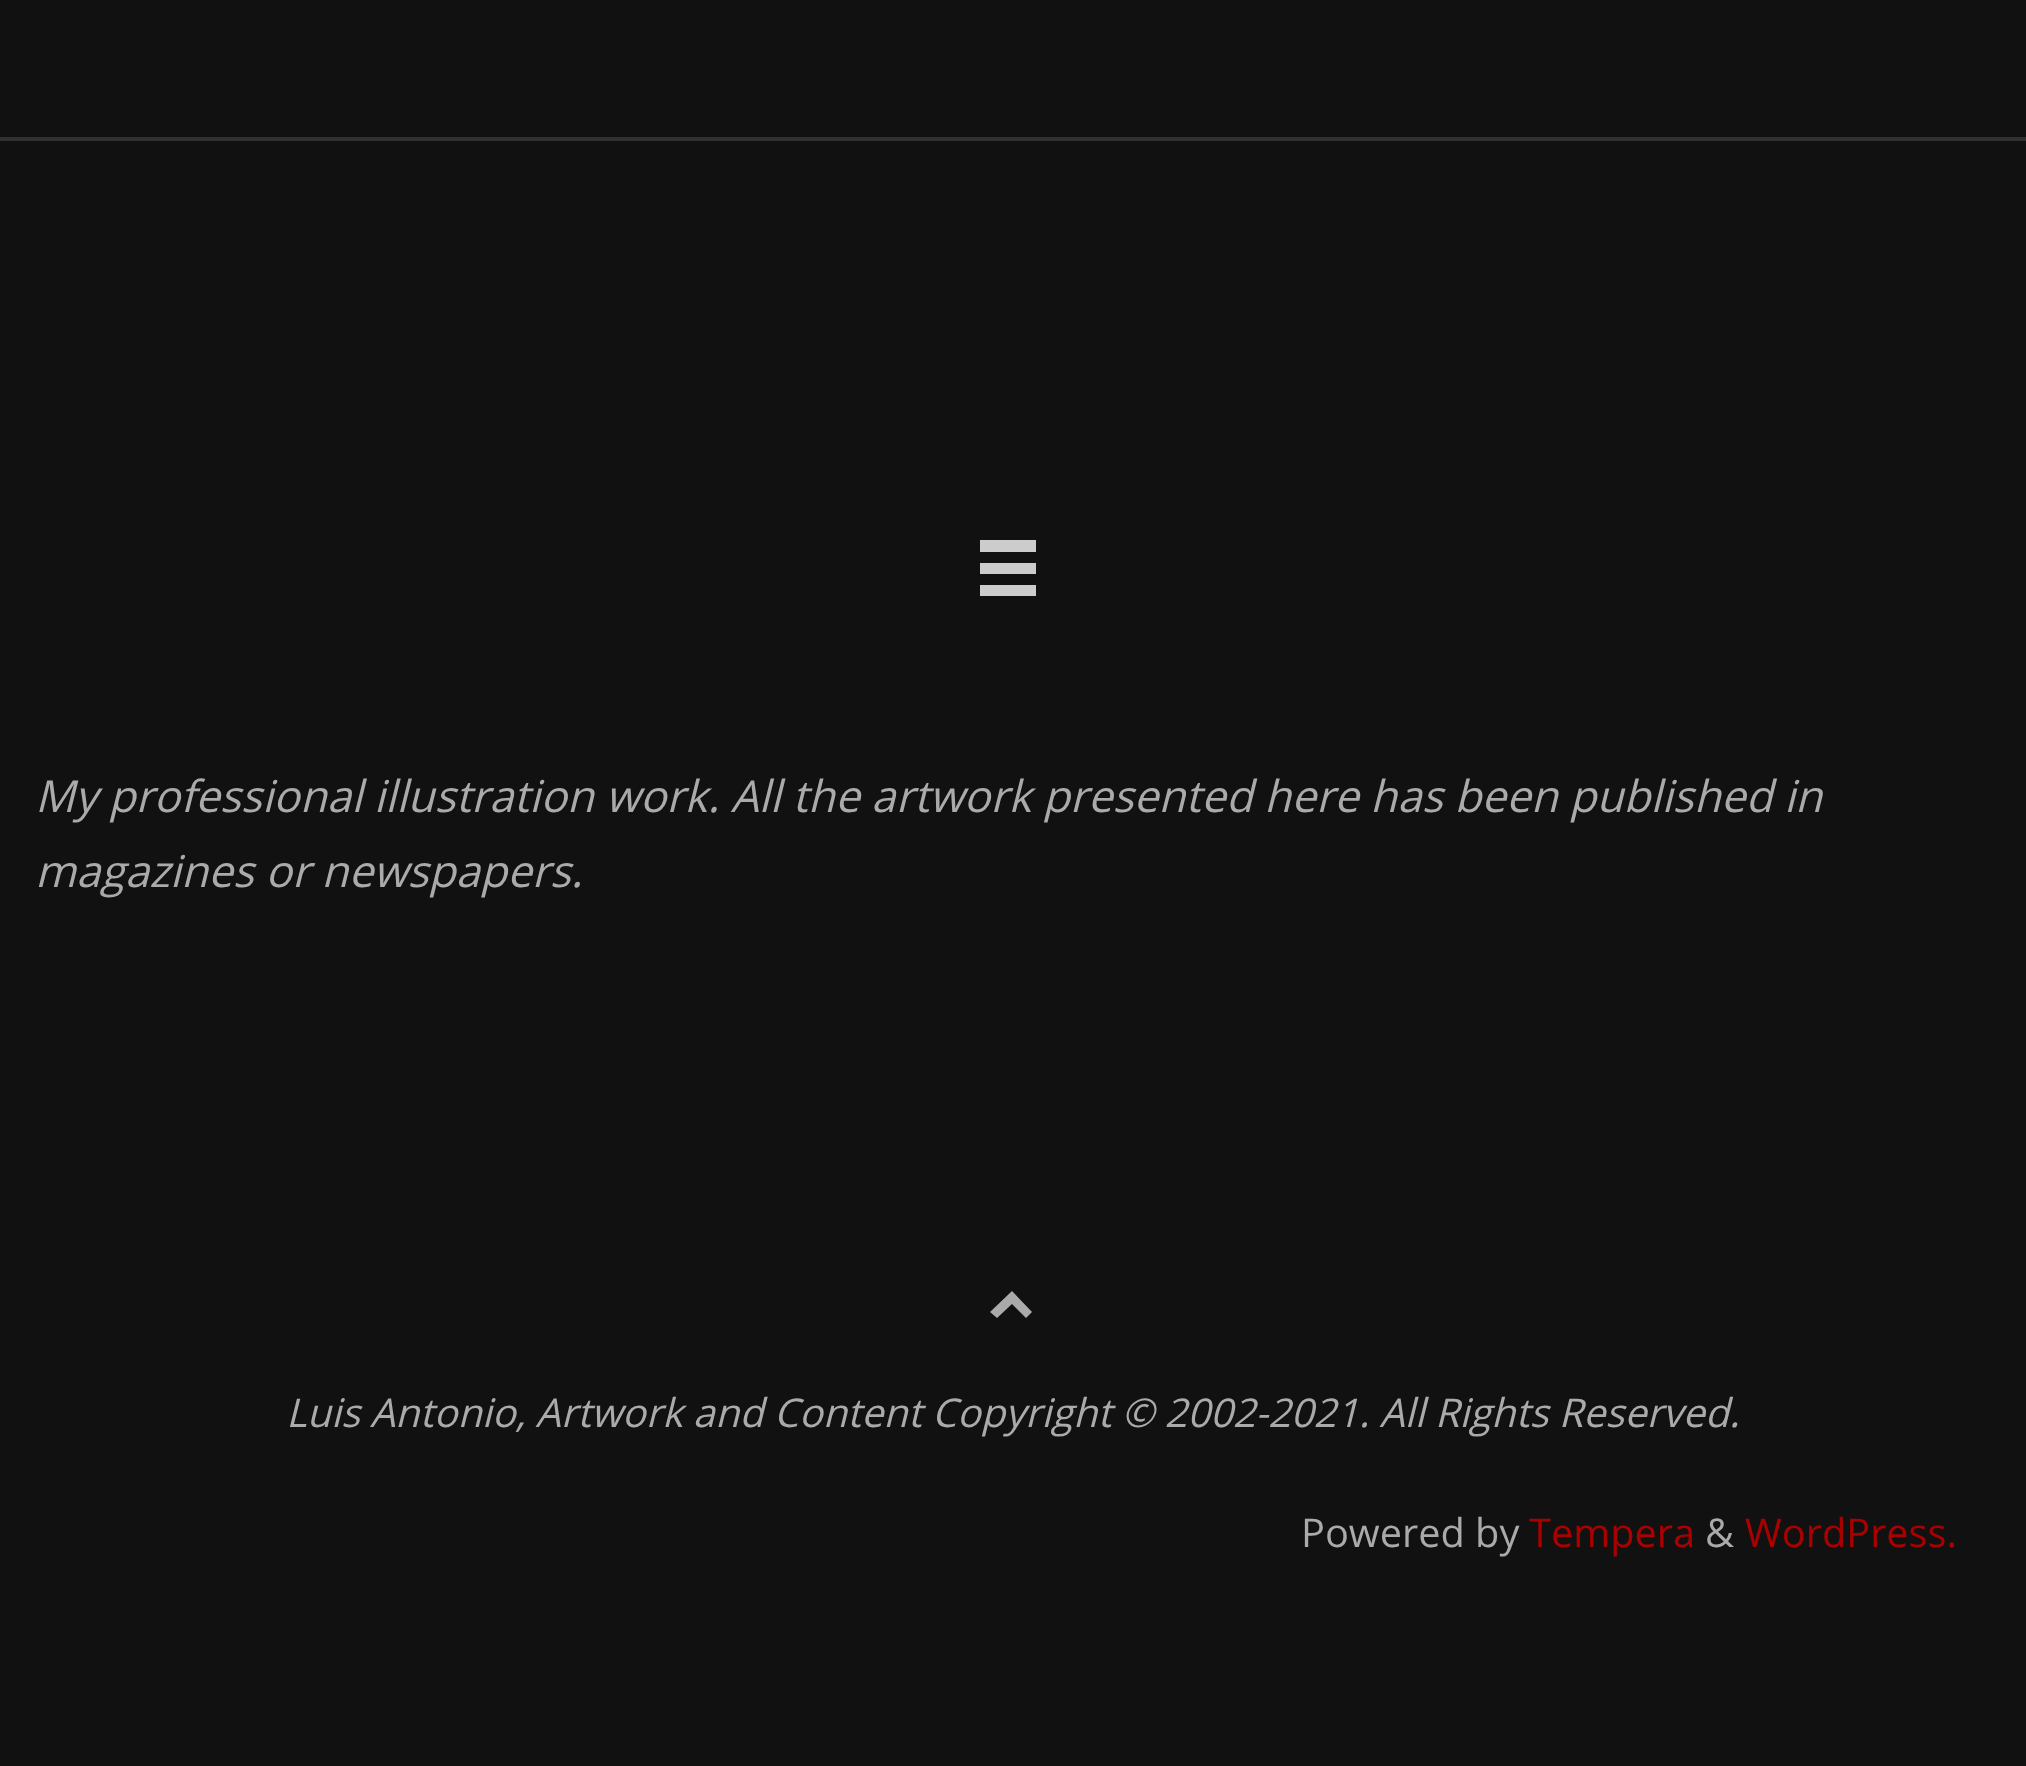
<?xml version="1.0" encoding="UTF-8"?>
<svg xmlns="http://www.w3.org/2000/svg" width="2026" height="1766">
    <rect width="100%" height="100%" fill="#111111"/>
    <rect x="0" y="137" width="2026" height="4" fill="#313131"/>
    <path d="M 980 540 V 552 H 1036 V 540 Z M 980 563 V 574 H 1036 V 563 Z M 980 585 V 596 H 1036 V 585 Z" fill="#CCCCCC"/>
    <text font-family="Open Sans" font-size="44.1" font-style="italic" fill="#AAAAAA">
        <tspan x="35" y="812">My professional illustration work. All the artwork presented here has been published in</tspan>
        <tspan x="35" y="887">magazines or newspapers.</tspan>
    </text>
    <path d="M 990 1312 L 1012 1291 L 1032 1312 L 1026 1318 L 1012 1304 L 997 1318 Z" fill="#AAAAAA"/>
    <text x="286" y="1427" word-spacing="-0.25" font-family="Open Sans" font-size="39.7" font-style="italic" fill="#AAAAAA">Luis Antonio, Artwork and Content Copyright © 2002-2021. All Rights Reserved.</text>
    <text x="1301" y="1547" font-family="Open Sans" font-size="39.7" fill="#AAAAAA">Powered by</text>
    <text x="1529" y="1547" font-family="Open Sans" font-size="39.7" fill="#AA0000">Tempera</text>
    <text x="1705" y="1547" font-family="Open Sans" font-size="39.7" fill="#AAAAAA">&amp;</text>
    <text x="1745" y="1547" font-family="Open Sans" font-size="39.7" fill="#AA0000">WordPress.</text>
</svg>
